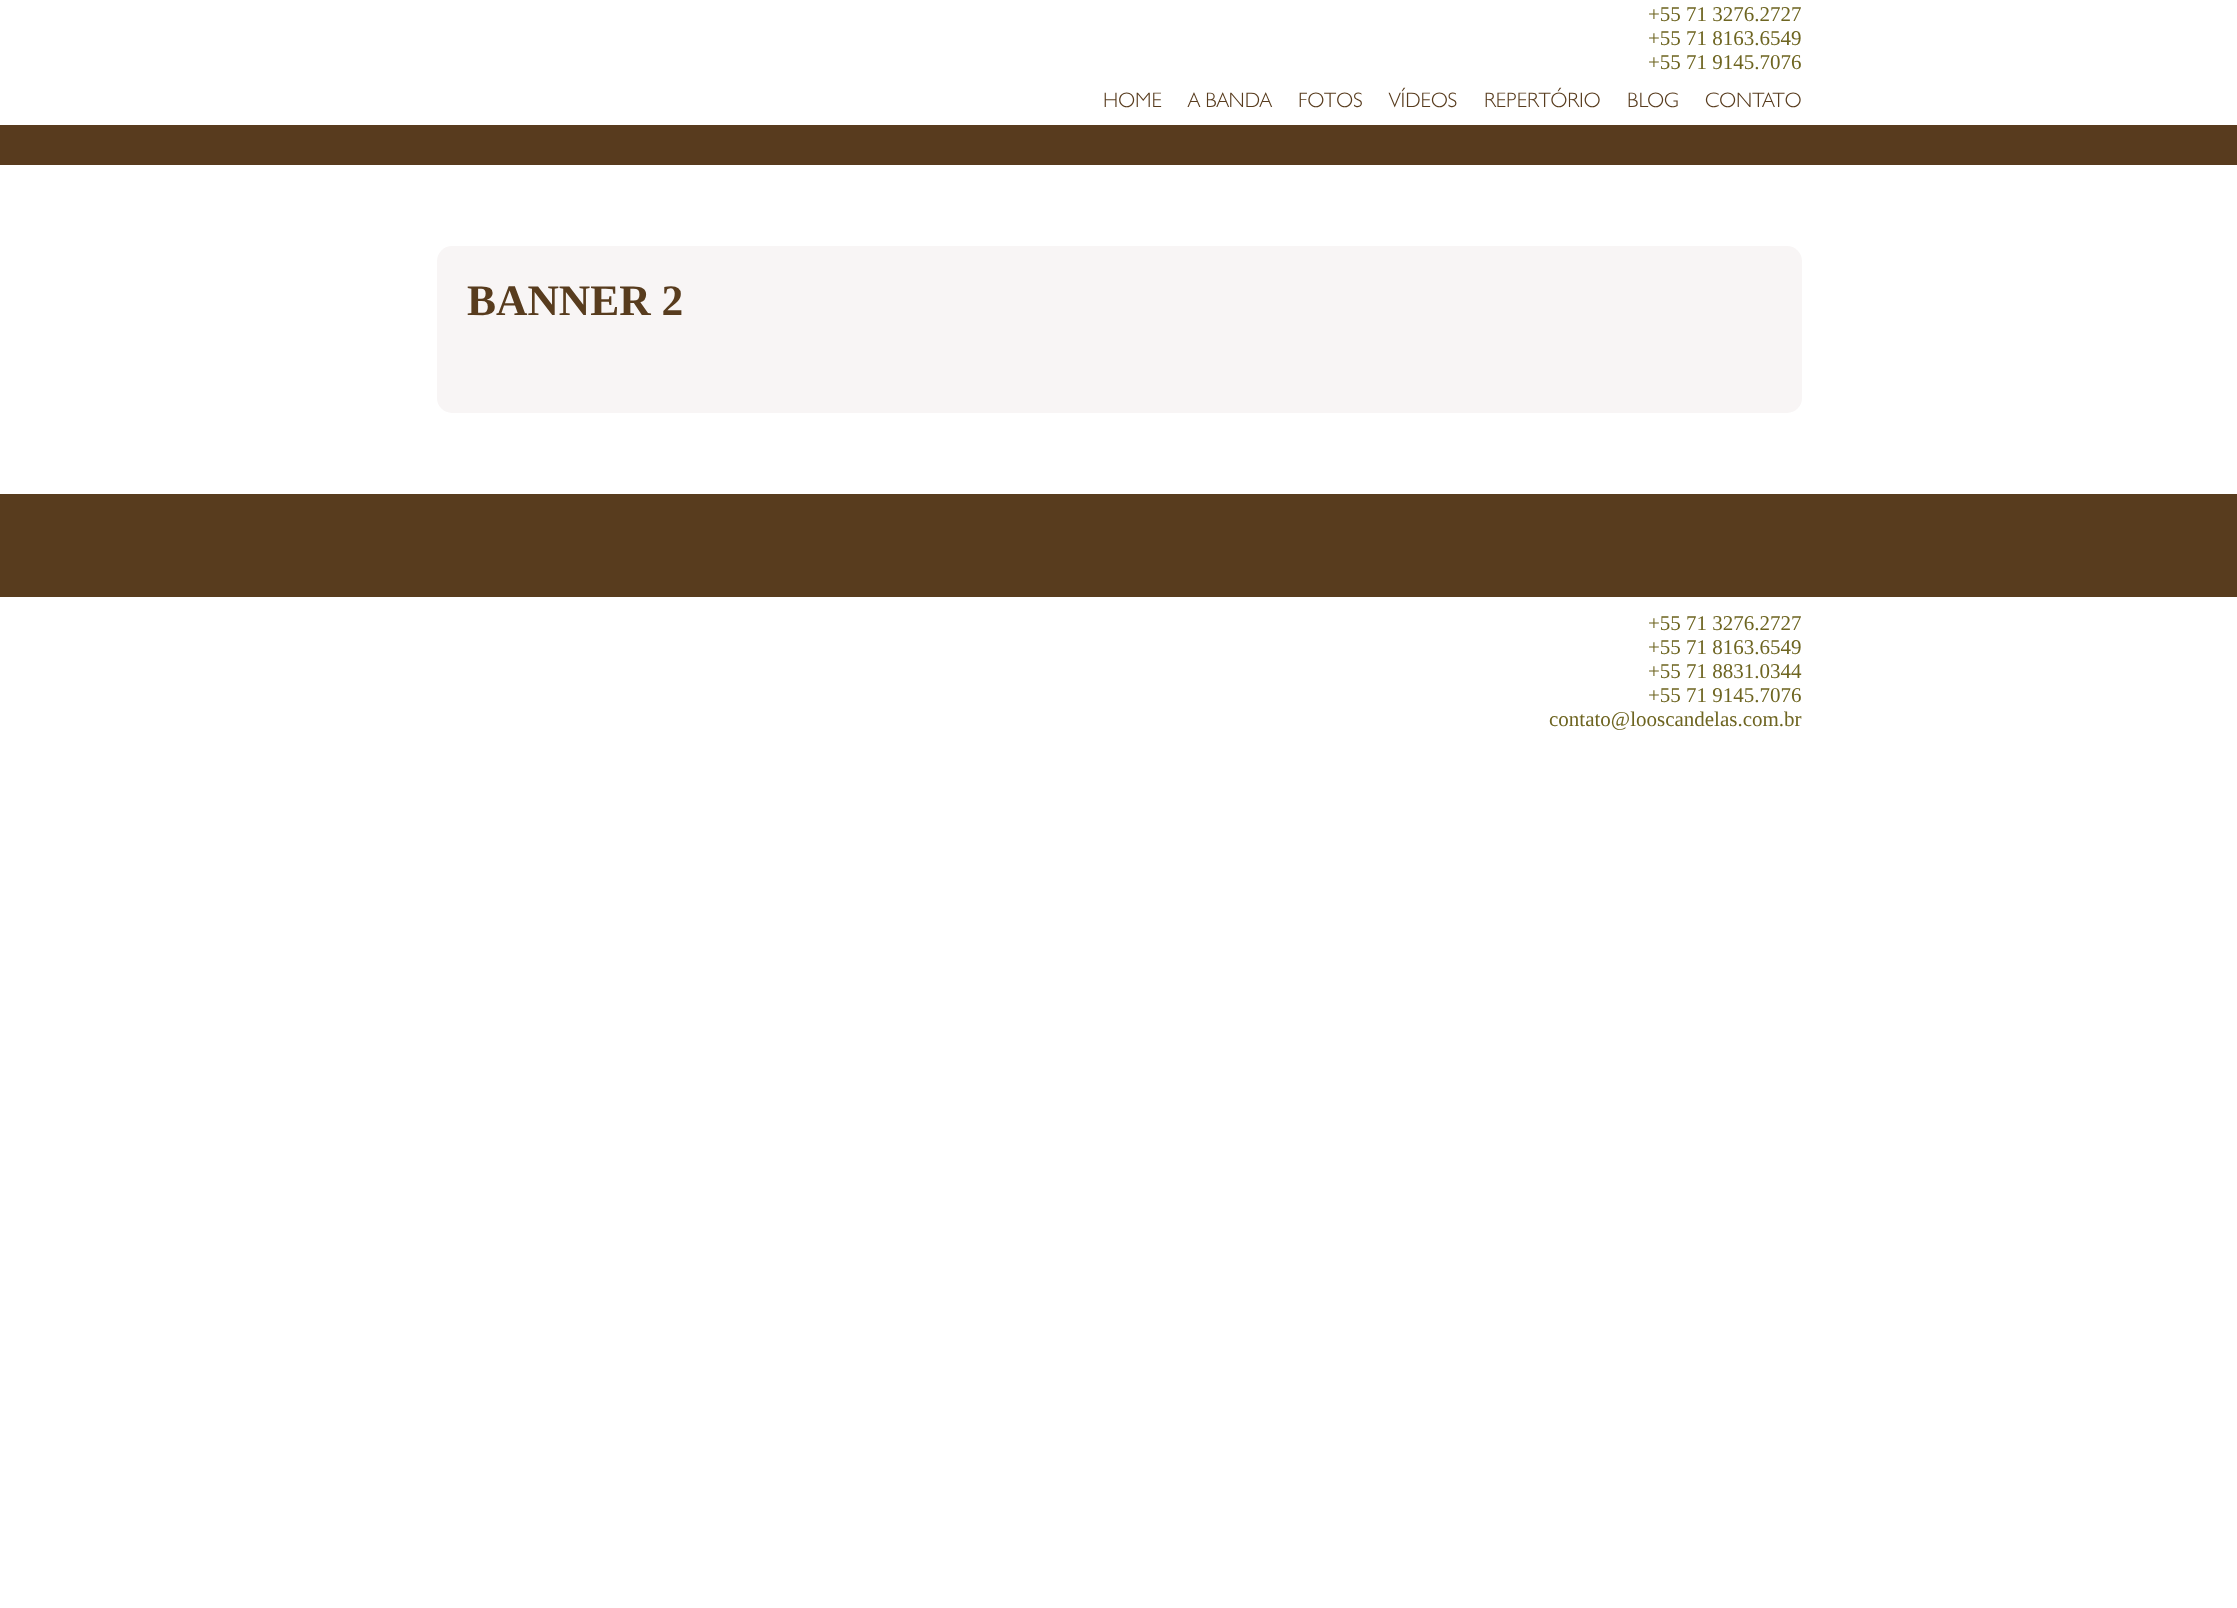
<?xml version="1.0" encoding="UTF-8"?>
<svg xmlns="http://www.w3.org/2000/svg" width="2237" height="1608">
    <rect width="100%" height="100%" fill="#FFFFFF"/>
    <text font-family="Liberation Serif" font-size="21" fill="#6E6521">
        <tspan x="1648" y="21">+55 71 3276.2727</tspan>
        <tspan x="1648" y="45">+55 71 8163.6549</tspan>
        <tspan x="1648" y="69">+55 71 9145.7076</tspan>
    </text>
    <text x="1103" y="107" font-family="'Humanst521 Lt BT'" font-size="21" font-weight="300" fill="#583C1E">HOME</text>
    <text x="1188" y="107" font-family="'Humanst521 Lt BT'" font-size="21" font-weight="300" fill="#583C1E">A BANDA</text>
    <text x="1298" y="107" font-family="'Humanst521 Lt BT'" font-size="21" font-weight="300" fill="#583C1E">FOTOS</text>
    <text x="1389" y="107" font-family="'Humanst521 Lt BT'" font-size="21" font-weight="300" fill="#583C1E">VÍDEOS</text>
    <text x="1484" y="107" font-family="'Humanst521 Lt BT'" font-size="21" font-weight="300" fill="#583C1E">REPERTÓRIO</text>
    <text x="1627" y="107" font-family="'Humanst521 Lt BT'" font-size="21" font-weight="300" fill="#583C1E">BLOG</text>
    <text x="1705" y="107" font-family="'Humanst521 Lt BT'" font-size="21" font-weight="300" fill="#583C1E">CONTATO</text>
    <rect x="0" y="125" width="2237" height="40" fill="#583B1E"/>
    <rect x="437" y="246" width="1365" height="167" rx="15" fill="#F8F5F5"/>
    <text x="467" y="315" font-family="Liberation Serif" font-size="43.5" font-weight="700" fill="#583C1E">BANNER 2</text>
    <rect x="0" y="494" width="2237" height="103" fill="#583C1E"/>
    <text font-family="Liberation Serif" font-size="21" fill="#6E6521">
        <tspan x="1648" y="630">+55 71 3276.2727</tspan>
        <tspan x="1648" y="654">+55 71 8163.6549</tspan>
        <tspan x="1648" y="678">+55 71 8831.0344</tspan>
        <tspan x="1648" y="702">+55 71 9145.7076</tspan>
    </text>
    <text x="1549" y="726" font-family="Liberation Serif" font-size="21" fill="#6E6521">contato@looscandelas.com.br</text>
</svg>
